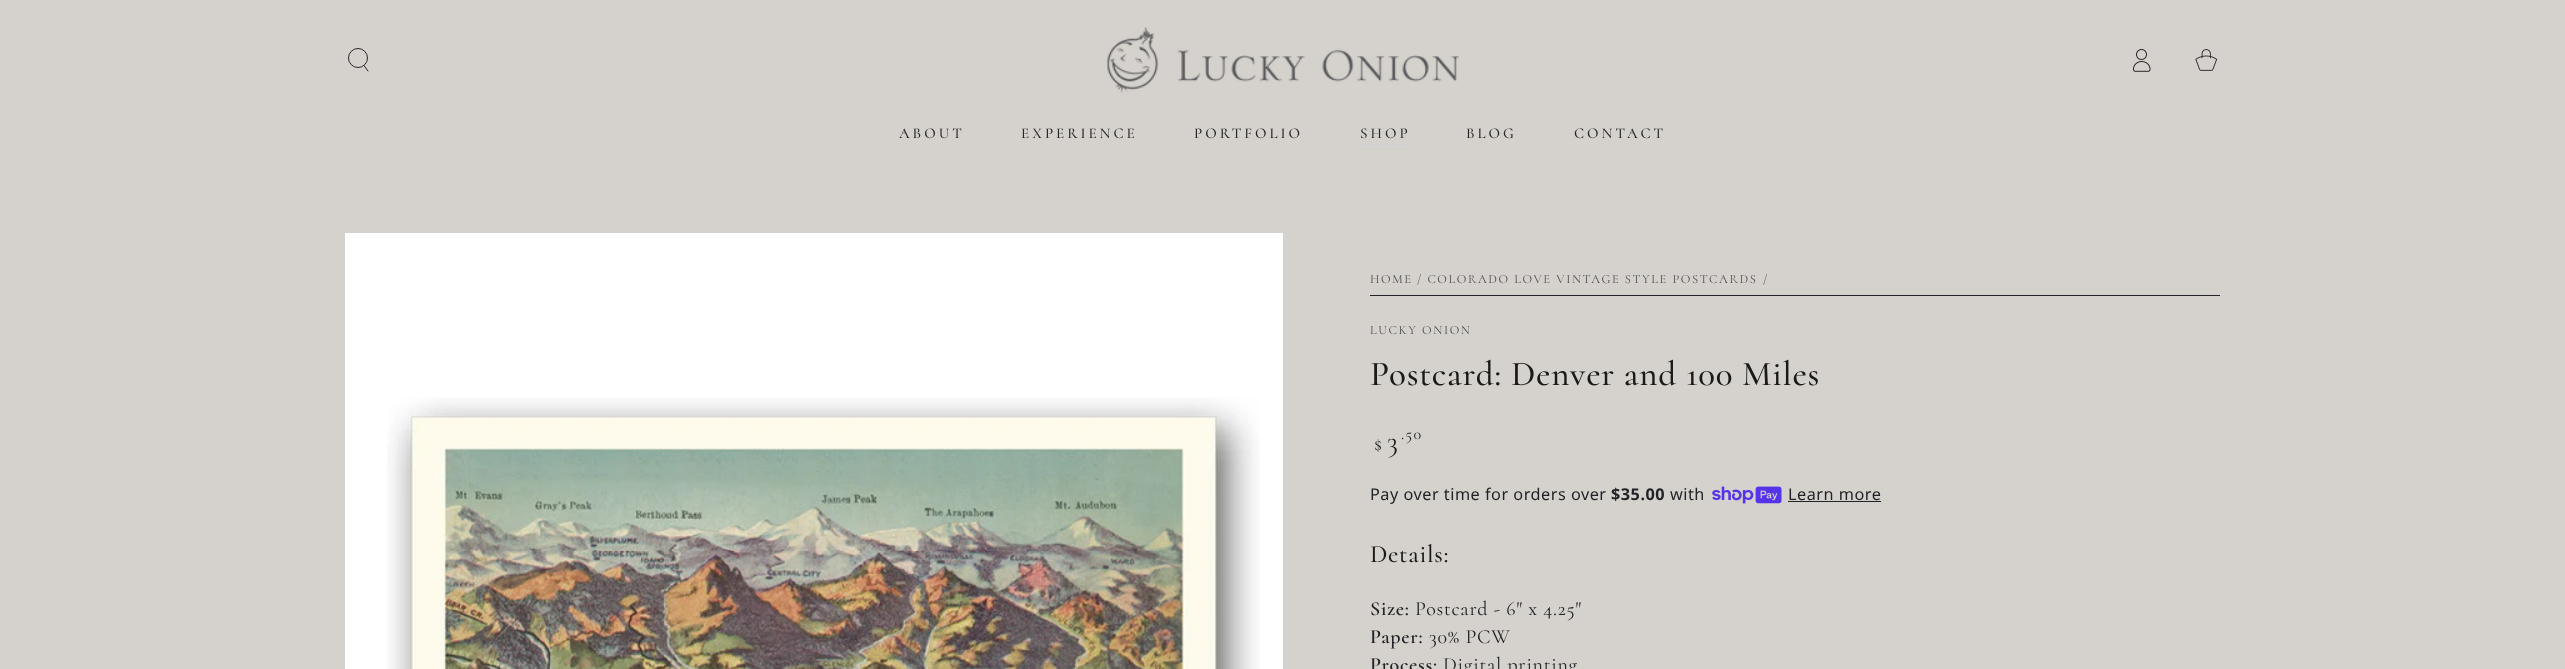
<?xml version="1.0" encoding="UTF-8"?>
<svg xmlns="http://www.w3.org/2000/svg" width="2565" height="669">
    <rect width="100%" height="100%" fill="#D5D2CD"/>
    <circle cx="358" cy="58" r="9.5" fill="none" stroke="#282828"/>
    <path d="M 364 65.5 L 368 71" fill="none" stroke="#282828" stroke-linecap="round"/>
    <image x="1107" y="27" width="352" height="66" href="img_01.png"/>
    <image x="2132" y="49" width="19" height="23" href="img_02.png"/>
    <image x="2195" y="49" width="23" height="22" href="img_03.png"/>
    <text x="899" y="138" font-family="Cormorant" font-size="15" font-weight="500" letter-spacing="3" fill="#282828">ABOUT</text>
    <text x="1021" y="138" font-family="Cormorant" font-size="15" font-weight="500" letter-spacing="3" fill="#282828">EXPERIENCE</text>
    <text x="1194" y="138" font-family="Cormorant" font-size="15" font-weight="500" letter-spacing="3" fill="#282828">PORTFOLIO</text>
    <rect x="1360" y="146" width="50" height="1" fill="#D2D5D9"/>
    <text x="1360" y="138" font-family="Cormorant" font-size="15" font-weight="500" letter-spacing="3" fill="#282828">SHOP</text>
    <text x="1466" y="138" font-family="Cormorant" font-size="15" font-weight="500" letter-spacing="3" fill="#282828">BLOG</text>
    <text x="1574" y="138" font-family="Cormorant" font-size="15" font-weight="500" letter-spacing="3" fill="#282828">CONTACT</text>
    <rect x="345" y="233" width="938" height="436" fill="#FFFFFF"/>
    <image x="387" y="397" width="873" height="272" href="img_04.png"/>
    <rect x="1370" y="295" width="850" height="1" fill="#212326"/>
    <text x="1370" y="283" font-family="Cormorant" font-size="12.5" letter-spacing="1.6" fill="#4E4F50">HOME</text>
    <text x="1417" y="283" font-family="Cormorant" font-size="12.5" letter-spacing="1.6" fill="#4E4F50">/ COLORADO LOVE VINTAGE STYLE POSTCARDS</text>
    <text x="1763" y="283" font-family="Cormorant" font-size="12.5" letter-spacing="1.6" fill="#4E4F50">/</text>
    <text x="1370" y="334" font-family="Cormorant" font-size="12.5" letter-spacing="1.6" fill="#4E4F50">LUCKY ONION</text>
    <text x="1370" y="385" font-family="Cormorant" font-size="35" font-weight="500" letter-spacing="0.75" fill="#1A1B18">Postcard: Denver and 100 Miles</text>
    <text x="1374" y="450" font-family="Cormorant" font-size="19" letter-spacing="1.6" fill="#1A1B18">$</text>
    <text x="1387" y="450" font-family="Cormorant" font-size="28" letter-spacing="1.6" fill="#1A1B18">3</text>
    <text x="1401" y="439" font-family="Cormorant" font-size="16" letter-spacing="1.6" fill="#1A1B18">.50</text>
    <text x="1370" y="500" font-family="Noto Sans" font-size="16.25" letter-spacing="0.5" fill="#212326">Pay over time for orders over</text>
    <text x="1611" y="500" font-family="Noto Sans" font-size="16.25" font-weight="700" letter-spacing="0.5" fill="#212326">$35.00</text>
    <text x="1670" y="500" font-family="Noto Sans" font-size="16.25" letter-spacing="0.5" fill="#212326">with</text>
    <image x="1712" y="486" width="70" height="18" href="img_05.png"/>
    <text x="1788" y="500" font-family="Noto Sans" font-size="16.25" letter-spacing="0.5" fill="#212326">Learn more</text>
    <rect x="1788" y="501" width="93" height="1" fill="#212326"/>
    <text x="1370" y="562" font-family="Cormorant" font-size="25" font-weight="500" letter-spacing="0.75" fill="#1A1B18">Details:</text>
    <text x="1370" y="615" font-family="Cormorant" font-size="20" font-weight="600" letter-spacing="0.75" fill="#212326">Size:</text>
    <text x="1415" y="615" font-family="Cormorant" font-size="20" letter-spacing="0.75" fill="#212326">Postcard - 6" x 4.25"</text>
    <text x="1370" y="643" font-family="Cormorant" font-size="20" font-weight="600" letter-spacing="0.75" fill="#212326">Paper:</text>
    <text x="1429" y="643" font-family="Cormorant" font-size="20" letter-spacing="0.75" fill="#212326">30% PCW</text>
    <text x="1370" y="671" font-family="Cormorant" font-size="20" font-weight="600" letter-spacing="0.75" fill="#212326">Process:</text>
    <text x="1443" y="671" font-family="Cormorant" font-size="20" letter-spacing="0.75" fill="#212326">Digital printing</text>
</svg>
